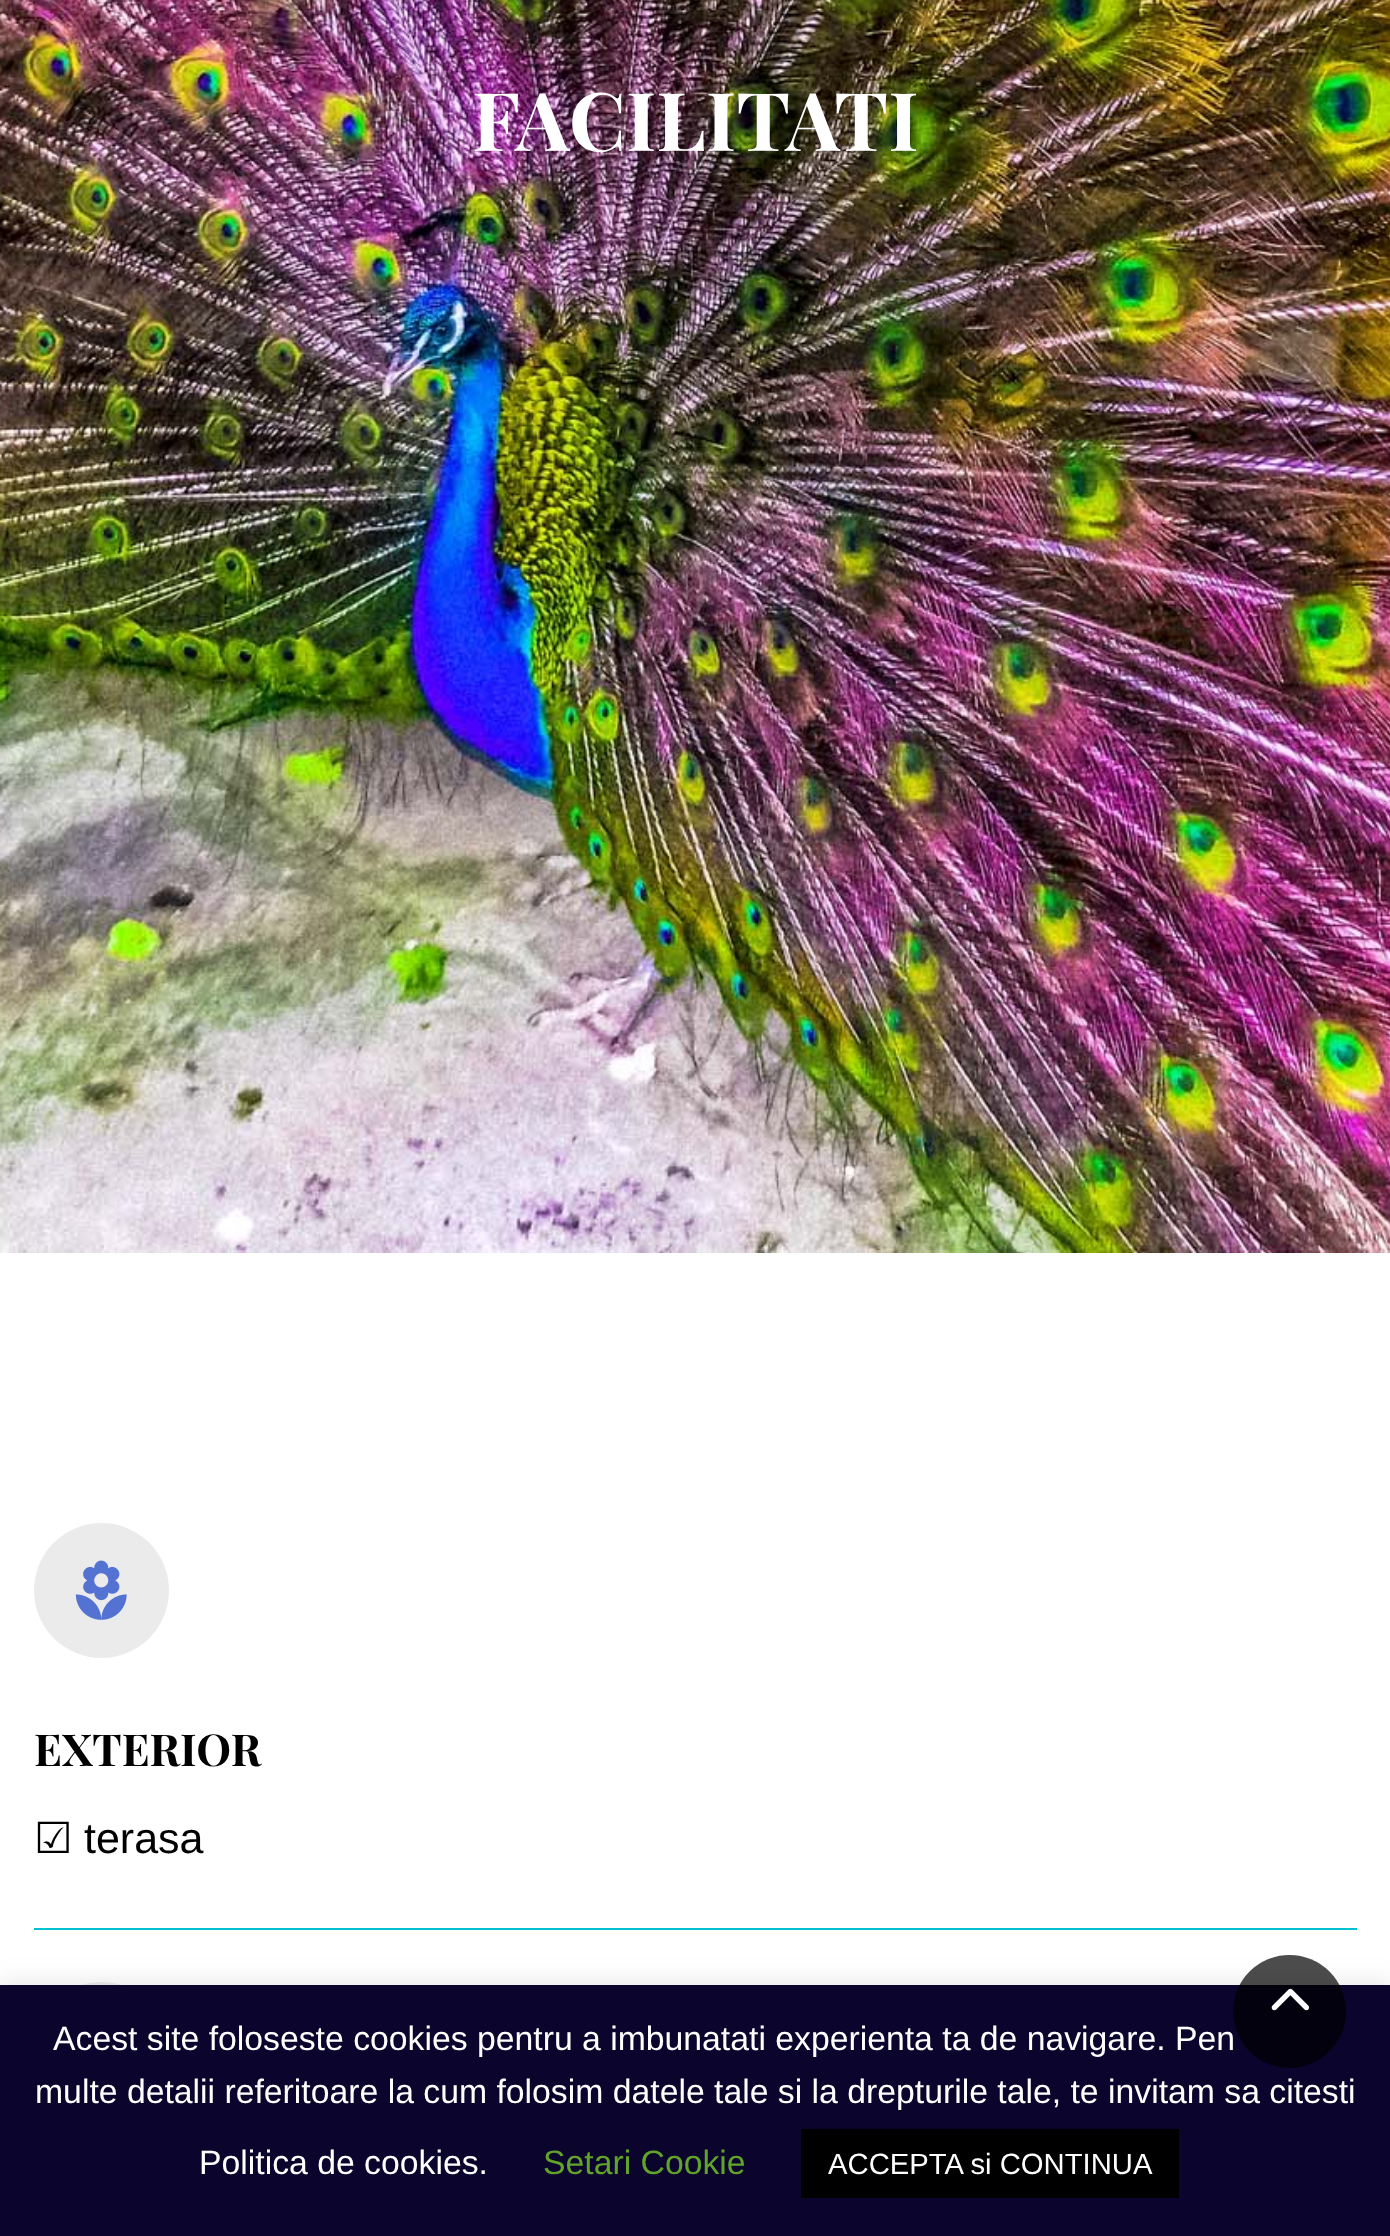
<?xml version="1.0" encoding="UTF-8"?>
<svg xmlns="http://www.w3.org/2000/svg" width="1390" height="2236">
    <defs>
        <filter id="blur1" x="-50%" y="-200%" width="200%" height="500%"><feGaussianBlur stdDeviation="11"/></filter>
    </defs>
    <rect width="100%" height="100%" fill="#FFFFFF"/>
    <image x="0" y="0" width="1390" height="1253" href="img_01.png"/>
    <text x="472" y="151" font-family="Playfair Display" font-size="81" font-weight="700" fill="#FFFFFF">FACILITATI</text>
    <circle cx="101.5" cy="1590.5" r="67.5" fill="#EBEBEB"/>
    <image x="75" y="1560" width="52" height="60" href="img_02.png"/>
    <text x="34" y="1766" font-family="Playfair Display" font-size="44" font-weight="700" fill="#000000">EXTERIOR</text>
    <text x="34" y="1853" font-family="DejaVu Sans" font-size="43" fill="#000000">☑</text>
    <text x="84" y="1853" font-family="Liberation Sans" font-size="43" fill="#000000">terasa</text>
    <rect x="34" y="1928" width="1323" height="2" fill="#00C1CF"/>
    <circle cx="101.5" cy="2049.5" r="67.5" fill="#EBEBEB"/>
    <rect x="0" y="1982" width="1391" height="252" fill="#ACABAB" fill-opacity="0.3" filter="url(#blur1)"/>
    <rect x="0" y="1985" width="1390" height="251" fill="#0B052D"/>
    <circle cx="1289.5" cy="2011.5" r="56.5" fill="#000000" fill-opacity="0.7"/>
    <image x="1271" y="1988" width="39" height="23" href="img_03.png"/>
    <text x="53" y="2050" font-family="Liberation Sans" font-size="33.75" fill="#FFFFFF">Acest site foloseste cookies pentru a imbunatati experienta ta de navigare. Pen</text>
    <text x="35" y="2103" font-family="Liberation Sans" font-size="33.75" fill="#FFFFFF">multe detalii referitoare la cum folosim datele tale si la drepturile tale, te invitam sa citesti</text>
    <text x="199" y="2174" font-family="Liberation Sans" font-size="33.75" fill="#FFFFFF">Politica de cookies.</text>
    <text x="543" y="2174" font-family="Liberation Sans" font-size="33.75" fill="#62A329">Setari Cookie</text>
    <rect x="801" y="2129" width="378" height="69" fill="#000000"/>
    <text x="828" y="2174" font-family="Liberation Sans" font-size="29.25" fill="#FFFFFF">ACCEPTA si CONTINUA</text>
</svg>
